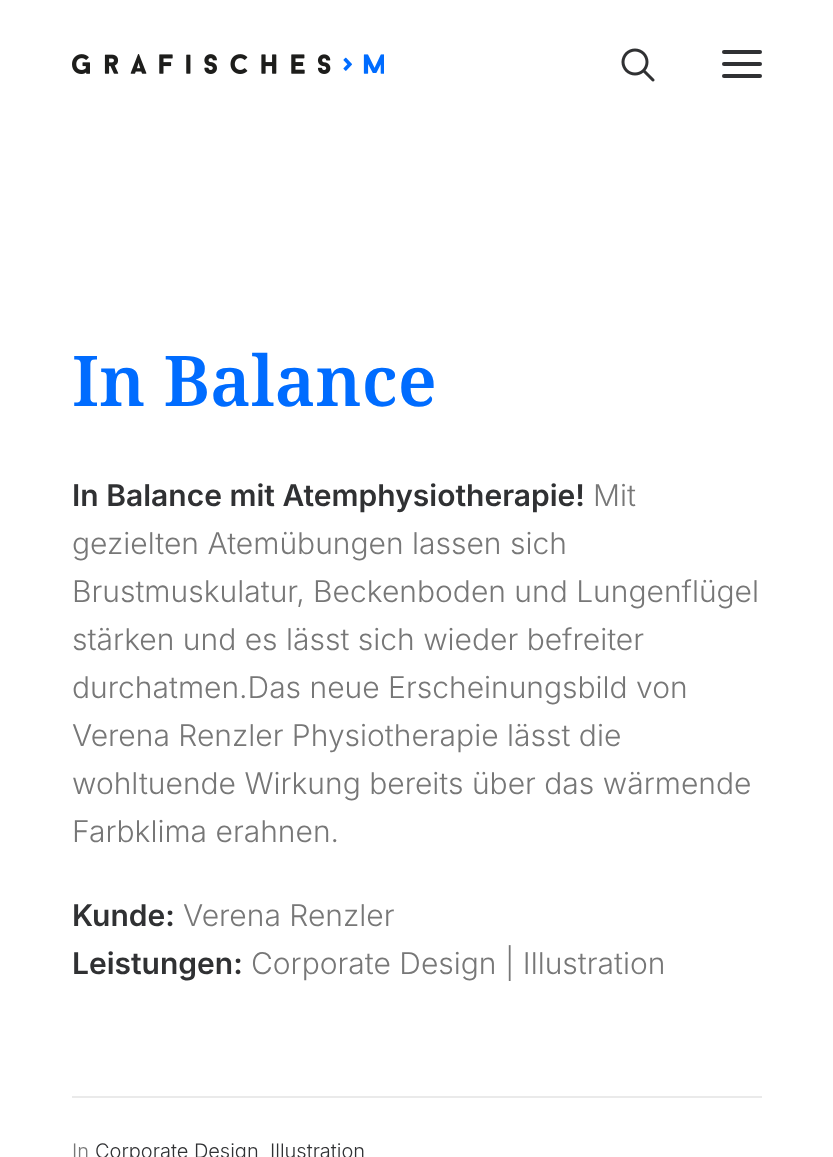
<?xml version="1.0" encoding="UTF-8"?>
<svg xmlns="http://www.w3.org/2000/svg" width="833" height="1157">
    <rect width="100%" height="100%" fill="#FFFFFF"/>
    <image x="72" y="54" width="312" height="20" href="img_01.png"/>
    <image x="621" y="48" width="34" height="34" href="img_02.png"/>
    <rect x="722" y="62" width="40" height="4" rx="2" fill="#303133"/>
    <rect x="722" y="50" width="40" height="4" rx="2" fill="#303133"/>
    <rect x="722" y="74" width="40" height="4" rx="2" fill="#303133"/>
    <text x="72" y="406" font-family="Noto Serif" font-size="70" font-weight="600" fill="#006CFF">In Balance</text>
    <text x="72" y="506" font-family="Inter" font-size="30" font-weight="600" fill="#303133">In Balance mit Atemphysiotherapie!</text>
    <text x="593" y="506" font-family="Inter" font-size="30" font-weight="300" fill="#777777">Mit</text>
    <text font-family="Inter" font-size="30" font-weight="300" fill="#777777">
        <tspan x="72" y="554">gezielten Atemübungen lassen sich</tspan>
        <tspan x="72" y="602">Brustmuskulatur, Beckenboden und Lungenflügel</tspan>
        <tspan x="72" y="650">stärken und es lässt sich wieder befreiter</tspan>
        <tspan x="72" y="698">durchatmen.Das neue Erscheinungsbild von</tspan>
        <tspan x="72" y="746">Verena Renzler Physiotherapie lässt die</tspan>
        <tspan x="72" y="794">wohltuende Wirkung bereits über das wärmende</tspan>
        <tspan x="72" y="842">Farbklima erahnen.</tspan>
    </text>
    <text x="72" y="926" font-family="Inter" font-size="30" font-weight="600" fill="#303133">Kunde:</text>
    <text x="183" y="926" font-family="Inter" font-size="30" font-weight="300" fill="#777777">Verena Renzler</text>
    <text x="72" y="974" font-family="Inter" font-size="30" font-weight="600" fill="#303133">Leistungen:</text>
    <text x="251" y="974" font-family="Inter" font-size="30" font-weight="300" fill="#777777">Corporate Design | Illustration</text>
    <rect x="72" y="1096" width="690" height="2" fill="#EAEAEA"/>
    <text x="72" y="1158" font-family="Inter" font-size="20" font-weight="300" fill="#777777">In</text>
    <text x="95" y="1158" font-family="Inter" font-size="20" font-weight="300" fill="#303133">Corporate Design</text>
    <text x="270" y="1158" font-family="Inter" font-size="20" font-weight="300" fill="#303133">Illustration</text>
</svg>
